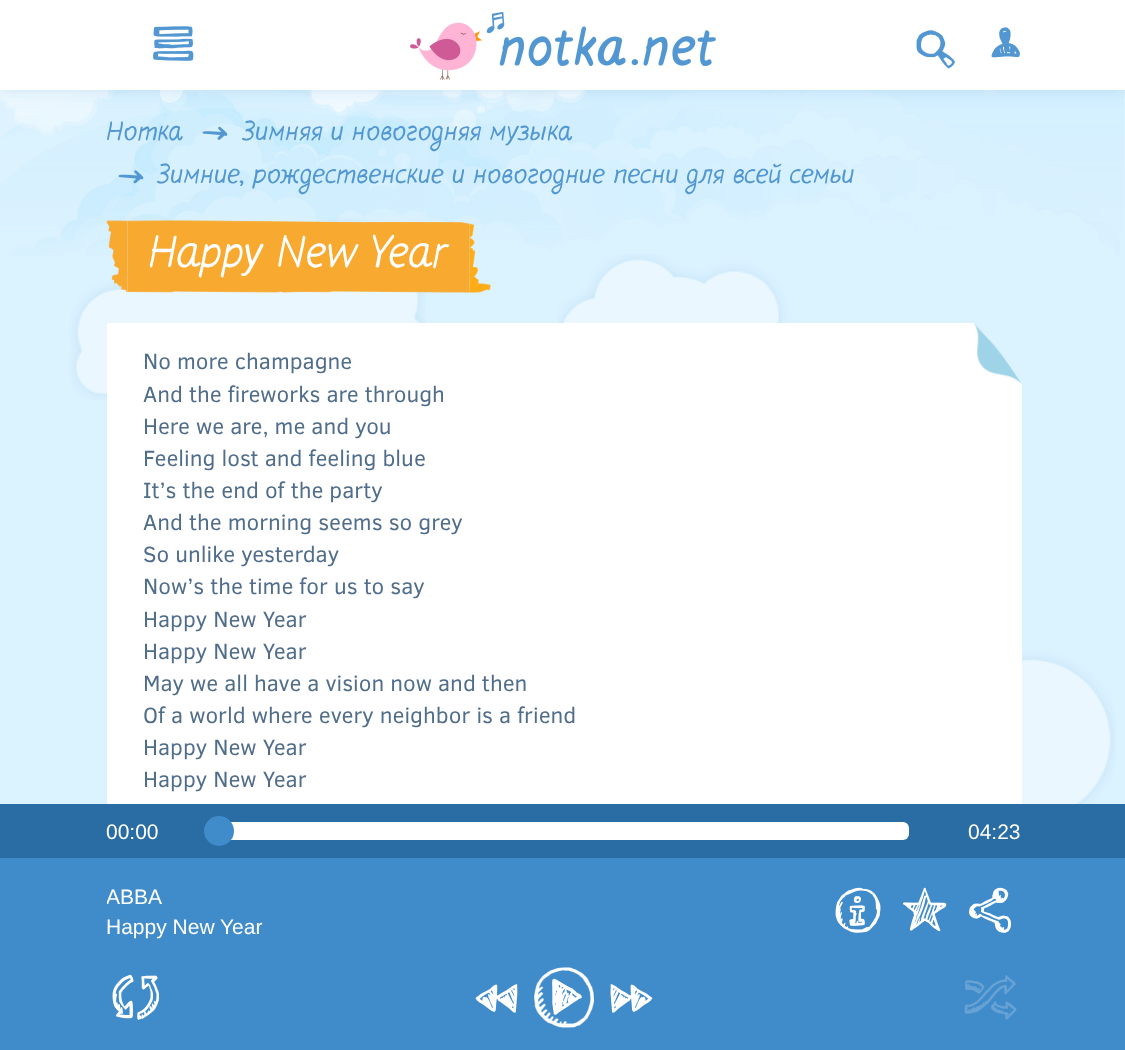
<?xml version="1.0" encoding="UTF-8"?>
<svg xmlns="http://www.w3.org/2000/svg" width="1125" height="1050">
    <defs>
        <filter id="blur1" x="-50%" y="-200%" width="200%" height="500%"><feGaussianBlur stdDeviation="7.5"/></filter>
        <clipPath id="clip1"><rect x="107" y="881" width="156" height="30"/></clipPath>
    </defs>
    <rect width="100%" height="100%" fill="#DBF2FF"/>
    <image x="0" y="90" width="1124" height="166" href="img_01.png"/>
    <rect x="0" y="0" width="1125" height="90" fill="#408BCA" fill-opacity="0.2" filter="url(#blur1)"/>
    <rect x="0" y="0" width="1125" height="90" fill="#FFFFFF"/>
    <image x="153" y="26" width="41" height="35" href="img_02.png"/>
    <image x="410" y="12" width="306" height="68" href="img_03.png"/>
    <image x="916" y="30" width="39" height="39" href="img_04.png"/>
    <image x="991" y="27" width="29" height="31" href="img_05.png"/>
    <text x="106" y="140" font-family="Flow" font-size="27" fill="#5297D2">Нотка</text>
    <image x="202" y="126" width="26" height="14" href="img_06.png"/>
    <text x="243" y="140" font-family="Flow" font-size="27" fill="#5297D2">Зимняя и новогодняя музыка</text>
    <image x="118" y="170" width="26" height="14" href="img_07.png"/>
    <text x="158" y="183" font-family="Flow" font-size="27" fill="#5297D2">Зимние, рождественские и новогодние песни для всей семьи</text>
    <image x="70" y="218" width="356" height="182" href="img_12.png"/>
    <image x="127" y="220" width="343" height="73" href="img_08.png"/>
    <image x="106" y="220" width="22" height="72" href="img_09.png"/>
    <text x="148" y="267" font-family="Flow" font-size="45" fill="#FFFFFF">Happy New Year</text>
    <image x="469" y="223" width="22" height="70" href="img_10.png"/>
    <image x="557" y="254" width="559" height="550" href="img_13.png"/>
    <rect x="107" y="323" width="867" height="481" fill="#FFFFFF"/>
    <text font-family="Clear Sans" font-size="22.5" fill="#506D8A">
        <tspan x="143" y="369">No more champagne</tspan>
        <tspan x="143" y="402">And the fireworks are through</tspan>
        <tspan x="143" y="434">Here we are, me and you</tspan>
        <tspan x="143" y="466">Feeling lost and feeling blue</tspan>
        <tspan x="143" y="498">It’s the end of the party</tspan>
        <tspan x="143" y="530">And the morning seems so grey</tspan>
        <tspan x="143" y="562">So unlike yesterday</tspan>
        <tspan x="143" y="594">Now’s the time for us to say</tspan>
        <tspan x="143" y="627">Happy New Year</tspan>
        <tspan x="143" y="659">Happy New Year</tspan>
        <tspan x="143" y="691">May we all have a vision now and then</tspan>
        <tspan x="143" y="723">Of a world where every neighbor is a friend</tspan>
        <tspan x="143" y="755">Happy New Year</tspan>
        <tspan x="143" y="787">Happy New Year</tspan>
    </text>
    <image x="974" y="324" width="47" height="60" href="img_11.png"/>
    <rect x="974" y="384" width="48" height="420" fill="#FFFFFF"/>
    <rect x="0" y="804" width="1125" height="54" fill="#2A6CA4"/>
    <text x="106" y="839" font-family="Liberation Sans" font-size="21" fill="#FFFFFF">00:00</text>
    <rect x="219" y="822" width="690" height="18" rx="6" fill="#FFFFFF"/>
    <circle cx="219" cy="831" r="15" fill="#408BCA"/>
    <text x="968" y="839" font-family="Liberation Sans" font-size="21" fill="#FFFFFF">04:23</text>
    <rect x="0" y="858" width="1125" height="192" fill="#408BCA"/>
    <g clip-path="url(#clip1)">
        <text x="106" y="904" font-family="Liberation Sans" font-size="21" fill="#FFFFFF">ABBA</text>
    </g>
    <text x="106" y="934" font-family="Liberation Sans" font-size="21" fill="#FFFFFF">Happy New Year</text>
    <image x="475" y="984" width="43" height="29" href="img_14.png"/>
    <image x="534" y="967" width="60" height="61" href="img_15.png"/>
    <image x="552" y="978" width="30" height="37" href="img_16.png"/>
    <image x="610" y="984" width="43" height="29" href="img_17.png"/>
    <image x="112" y="974" width="47" height="46" href="img_18.png"/>
    <image x="964" y="975" width="53" height="45" href="img_19.png"/>
    <image x="835" y="887" width="46" height="46" href="img_20.png"/>
    <image x="903" y="887" width="44" height="45" href="img_21.png"/>
    <image x="969" y="887" width="43" height="46" href="img_22.png"/>
</svg>
